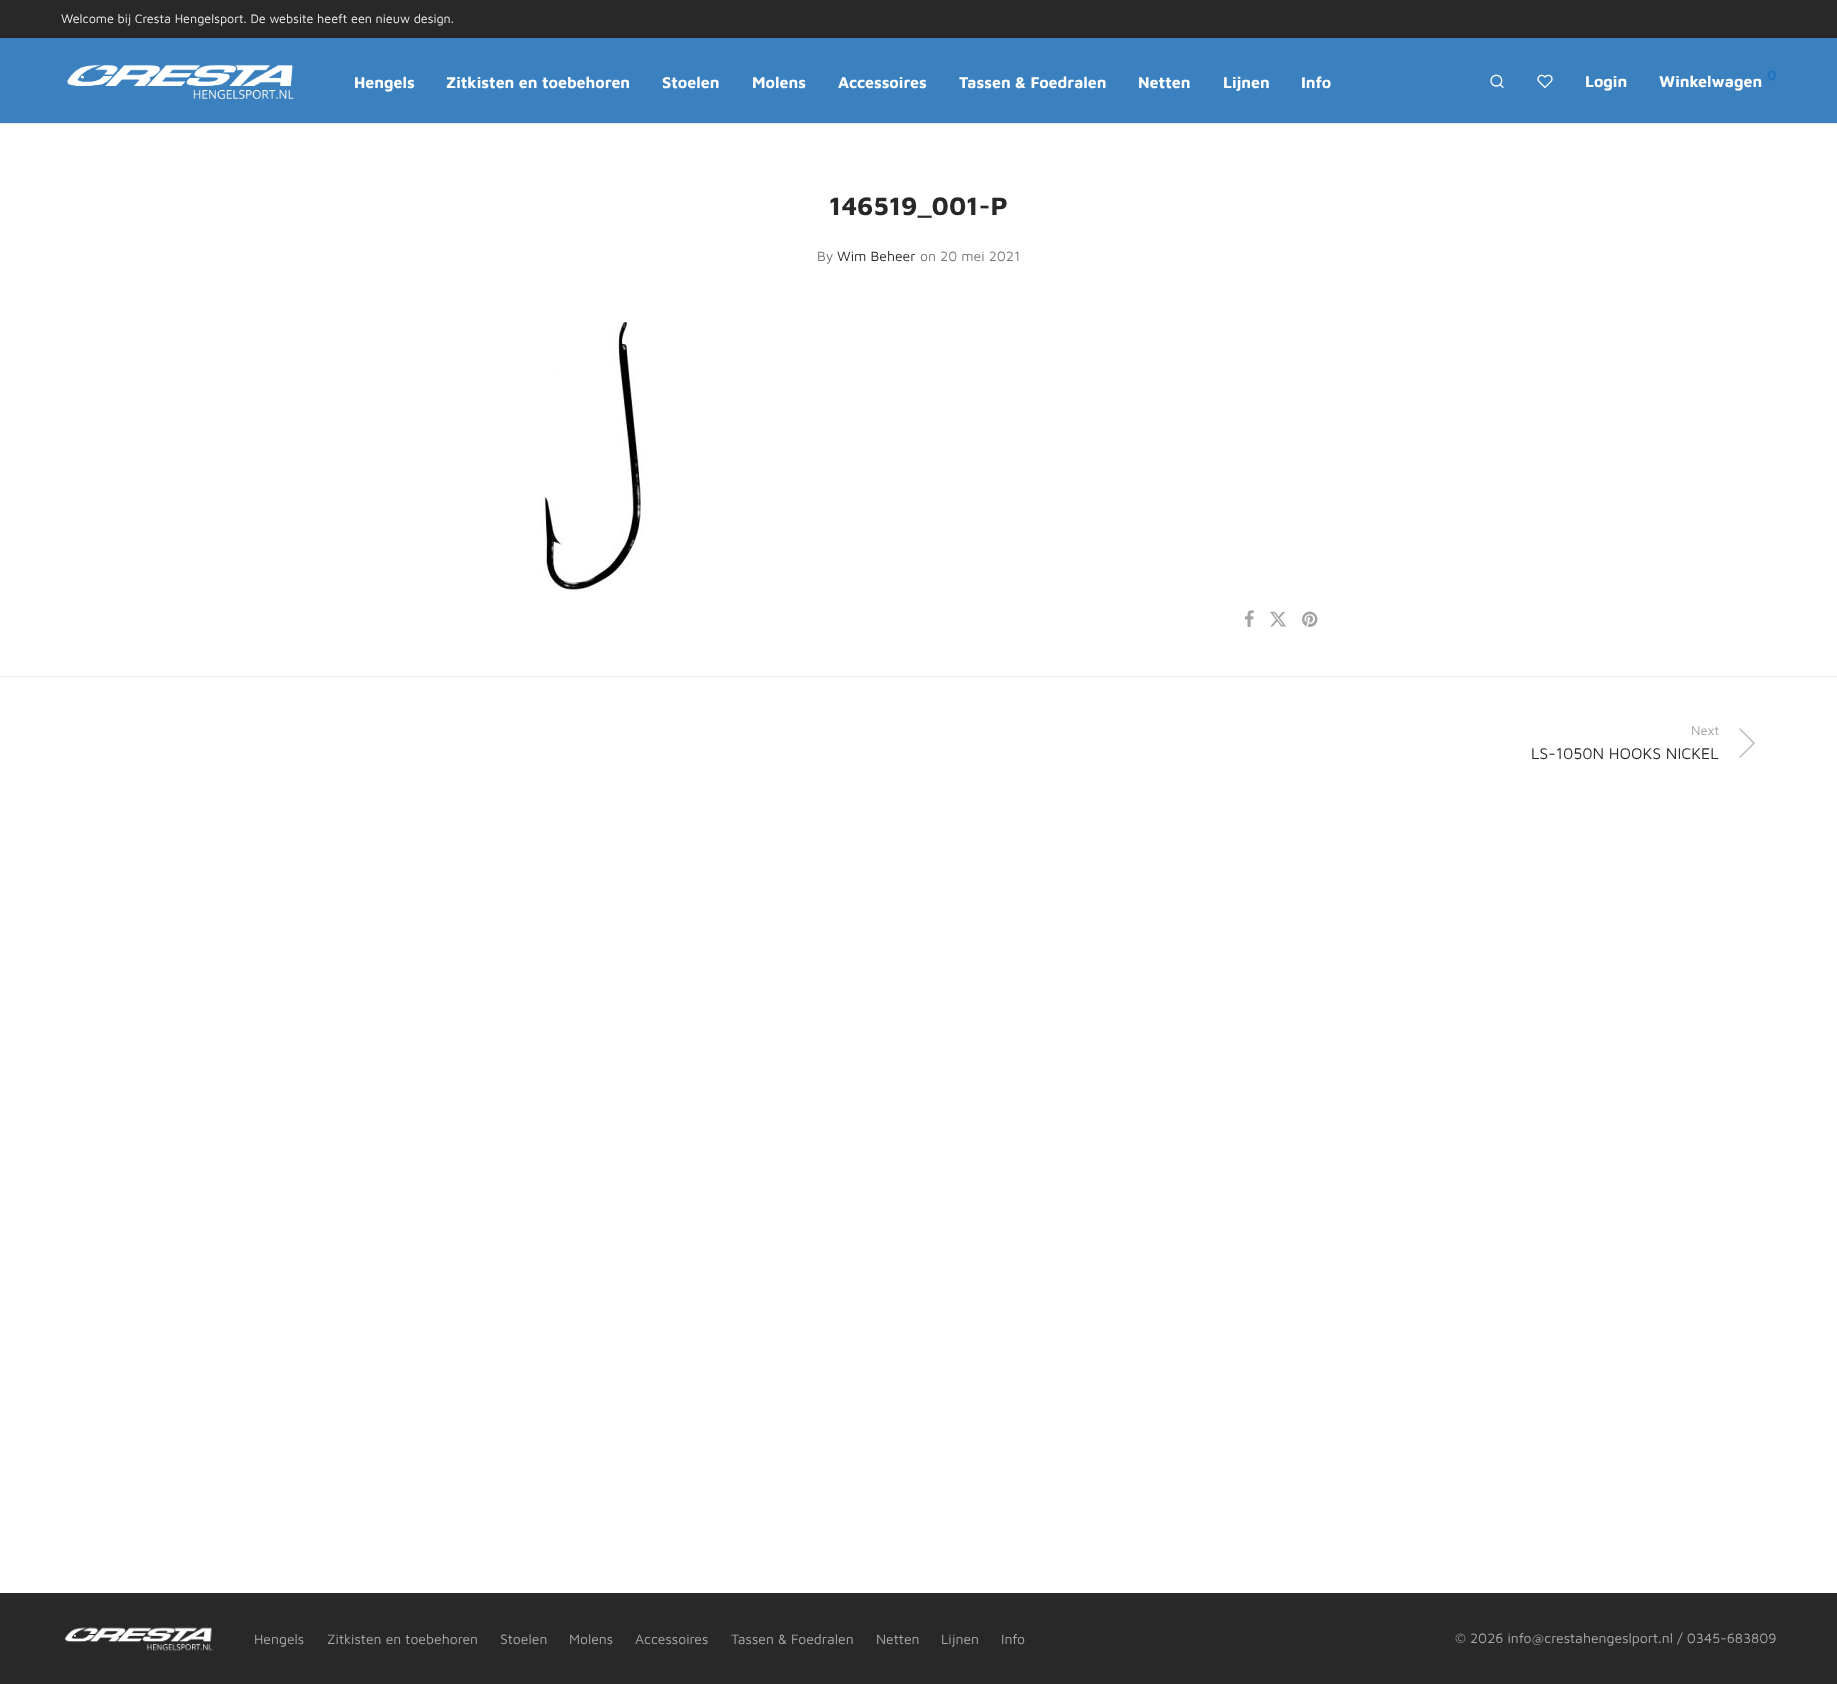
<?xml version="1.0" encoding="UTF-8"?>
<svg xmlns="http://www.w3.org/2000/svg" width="1837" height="1684">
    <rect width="100%" height="100%" fill="#FFFFFF"/>
    <rect x="0" y="0" width="1837" height="38" fill="#282828"/>
    <text x="61" y="23" font-family="Maven Pro" font-size="12.6" fill="#EEEEEE">Welcome bij Cresta Hengelsport. De website heeft een nieuw design.</text>
    <rect x="0" y="38" width="1837" height="85" fill="#3B81BF"/>
    <rect x="0" y="123" width="1837" height="1" fill="#EEEEEE"/>
    <image x="67" y="64" width="227" height="36" href="img_01.png"/>
    <text x="354" y="88" font-family="Maven Pro" font-size="16" font-weight="700" fill="#FFFFFF">Hengels</text>
    <text x="446" y="88" font-family="Maven Pro" font-size="16" font-weight="700" fill="#FFFFFF">Zitkisten en toebehoren</text>
    <text x="662" y="88" font-family="Maven Pro" font-size="16" font-weight="700" fill="#FFFFFF">Stoelen</text>
    <text x="752" y="88" font-family="Maven Pro" font-size="16" font-weight="700" fill="#FFFFFF">Molens</text>
    <text x="838" y="88" font-family="Maven Pro" font-size="16" font-weight="700" fill="#FFFFFF">Accessoires</text>
    <text x="959" y="88" font-family="Maven Pro" font-size="16" font-weight="700" fill="#FFFFFF">Tassen &amp; Foedralen</text>
    <text x="1138" y="88" font-family="Maven Pro" font-size="16" font-weight="700" fill="#FFFFFF">Netten</text>
    <text x="1223" y="88" font-family="Maven Pro" font-size="16" font-weight="700" fill="#FFFFFF">Lijnen</text>
    <text x="1301" y="88" font-family="Maven Pro" font-size="16" font-weight="700" fill="#FFFFFF">Info</text>
    <image x="1490" y="74" width="14" height="14" href="img_02.png"/>
    <image x="1537" y="74" width="16" height="15" href="img_03.png"/>
    <text x="1585" y="87" font-family="Maven Pro" font-size="16" font-weight="700" fill="#FFFFFF">Login</text>
    <text x="1659" y="87" font-family="Maven Pro" font-size="16" font-weight="700" fill="#FFFFFF">Winkelwagen</text>
    <text x="1767" y="80" font-family="Maven Pro" font-size="14" font-weight="700" fill="#1E73BE">0</text>
    <text x="829" y="215" font-family="Maven Pro" font-size="26" font-weight="700" fill="#282828">146519_001-P</text>
    <text x="817" y="261" font-family="Maven Pro" font-size="14" fill="#777777">By</text>
    <text x="837" y="261" font-family="Maven Pro" font-size="14" fill="#282828">Wim Beheer</text>
    <text x="920" y="261" font-family="Maven Pro" font-size="14" fill="#777777">on 20 mei 2021</text>
    <image x="541" y="321" width="104" height="272" href="img_04.png"/>
    <image x="1244" y="610" width="10" height="17" href="img_05.png"/>
    <image x="1270" y="611" width="16" height="16" href="img_06.png"/>
    <image x="1302" y="611" width="16" height="16" href="img_07.png"/>
    <rect x="0" y="676" width="1837" height="1" fill="#EEEEEE"/>
    <text x="1691" y="735" font-family="Maven Pro" font-size="13" fill="#A3A3A3">Next</text>
    <image x="1739" y="728" width="16" height="30" href="img_08.png"/>
    <text x="1531" y="759" font-family="Maven Pro" font-size="16" fill="#282828">LS-1050N HOOKS NICKEL</text>
    <rect x="0" y="1593" width="1837" height="91" fill="#282828"/>
    <image x="64" y="1627" width="149" height="24" href="img_09.png"/>
    <text x="254" y="1644" font-family="Maven Pro" font-size="14" fill="#AAAAAA">Hengels</text>
    <text x="327" y="1644" font-family="Maven Pro" font-size="14" fill="#AAAAAA">Zitkisten en toebehoren</text>
    <text x="500" y="1644" font-family="Maven Pro" font-size="14" fill="#AAAAAA">Stoelen</text>
    <text x="569" y="1644" font-family="Maven Pro" font-size="14" fill="#AAAAAA">Molens</text>
    <text x="635" y="1644" font-family="Maven Pro" font-size="14" fill="#AAAAAA">Accessoires</text>
    <text x="731" y="1644" font-family="Maven Pro" font-size="14" fill="#AAAAAA">Tassen &amp; Foedralen</text>
    <text x="876" y="1644" font-family="Maven Pro" font-size="14" fill="#AAAAAA">Netten</text>
    <text x="941" y="1644" font-family="Maven Pro" font-size="14" fill="#AAAAAA">Lijnen</text>
    <text x="1001" y="1644" font-family="Maven Pro" font-size="14" fill="#AAAAAA">Info</text>
    <text x="1455" y="1643" font-family="Maven Pro" font-size="14" fill="#AAAAAA">© 2026 info@crestahengeslport.nl / 0345-683809</text>
</svg>
